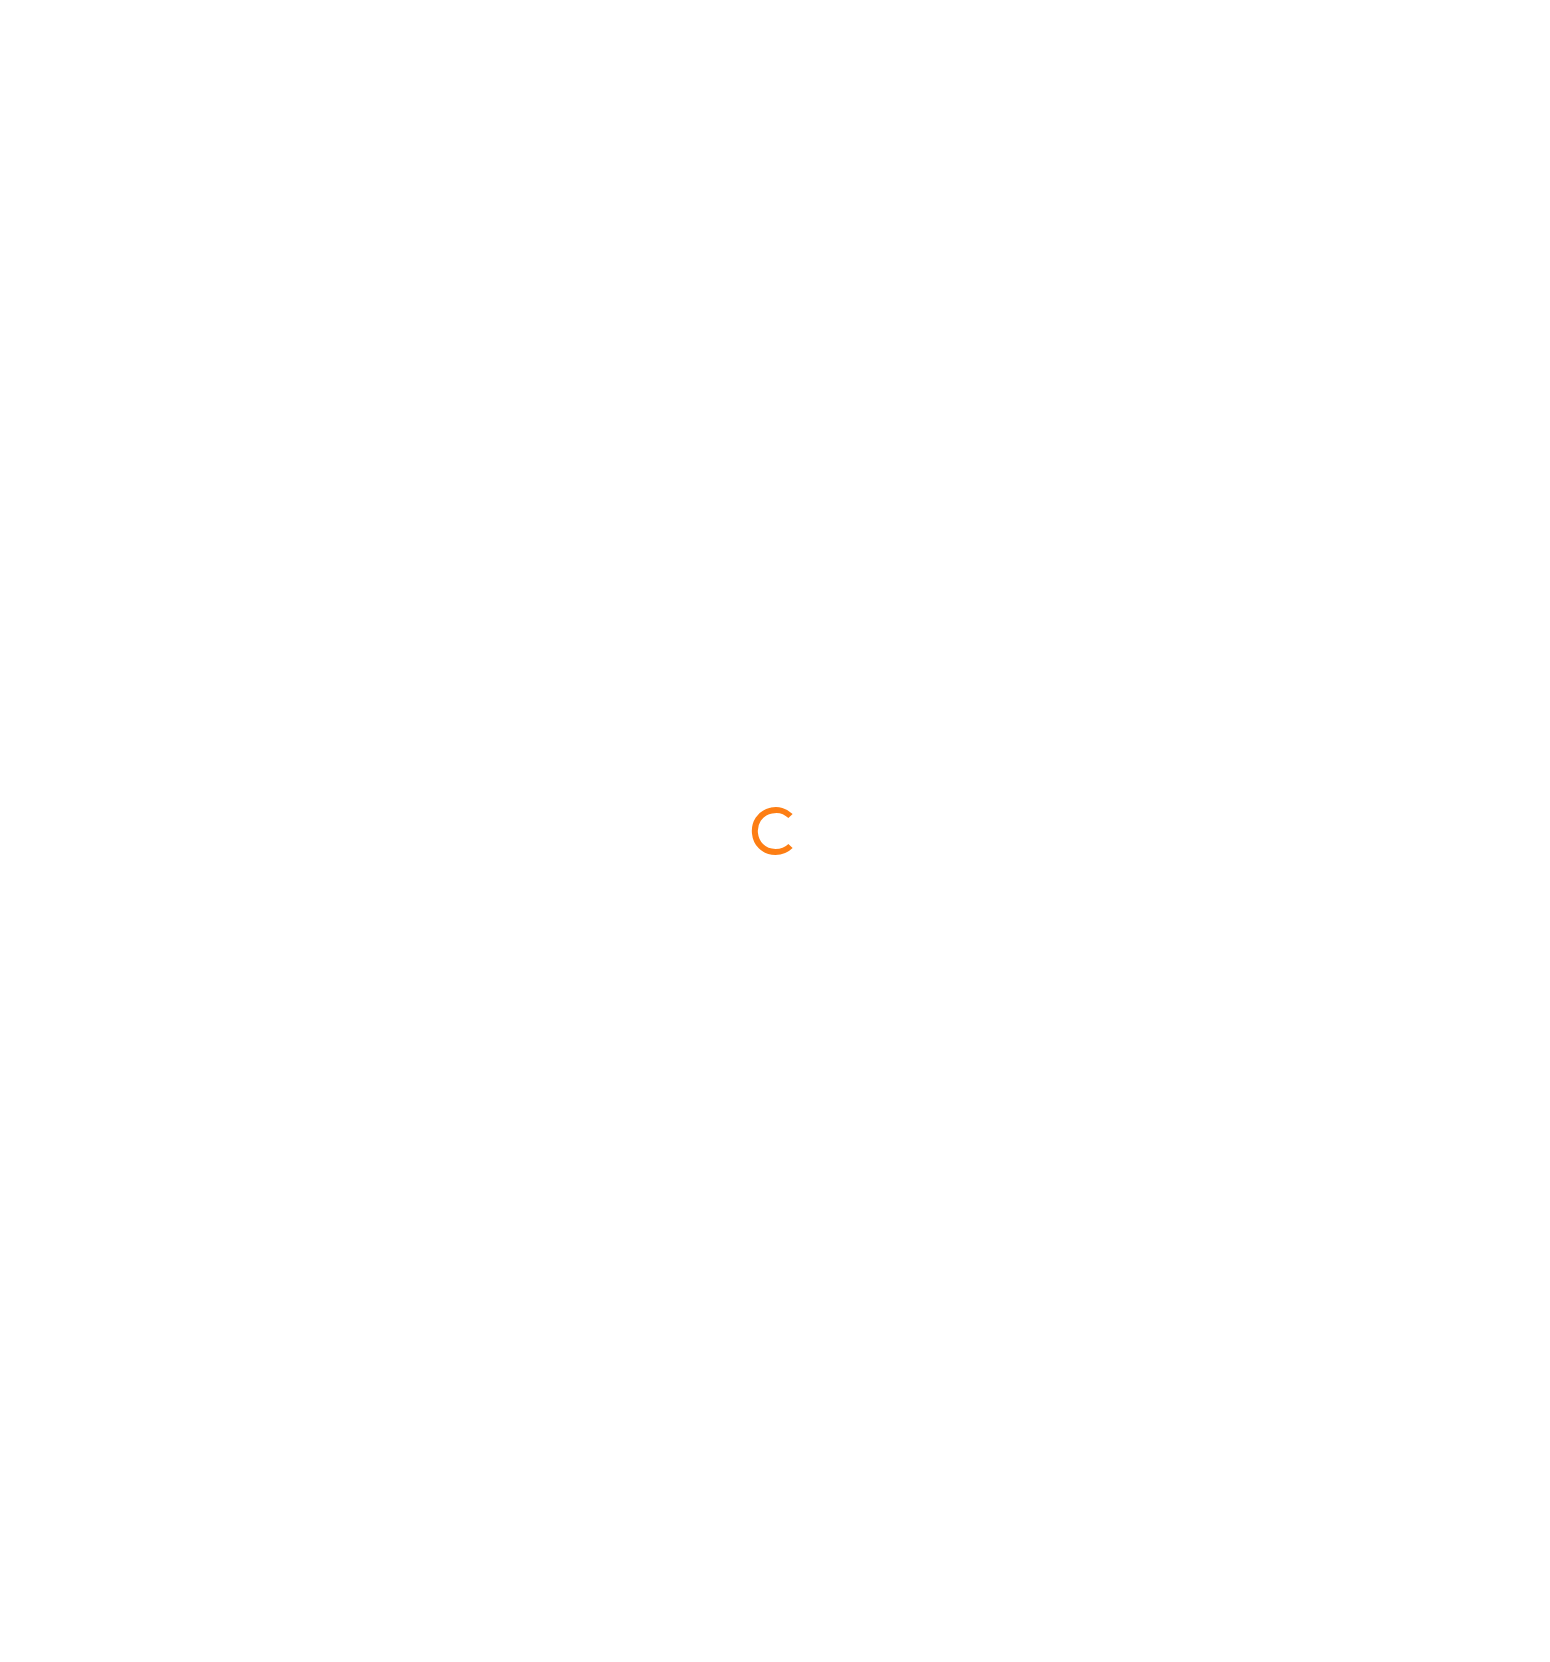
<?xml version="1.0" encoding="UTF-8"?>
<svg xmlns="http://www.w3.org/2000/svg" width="1550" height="1662">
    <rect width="100%" height="100%" fill="#FFFFFF"/>
    <path d="M 790.5 846 C 786.5 850 781 852 775.5 852 C 750.5 852 747 815.5 771.5 810.5 C 778 809 785.5 811 790.5 816" fill="none" stroke="#FD7E14" stroke-width="6"/>
</svg>
